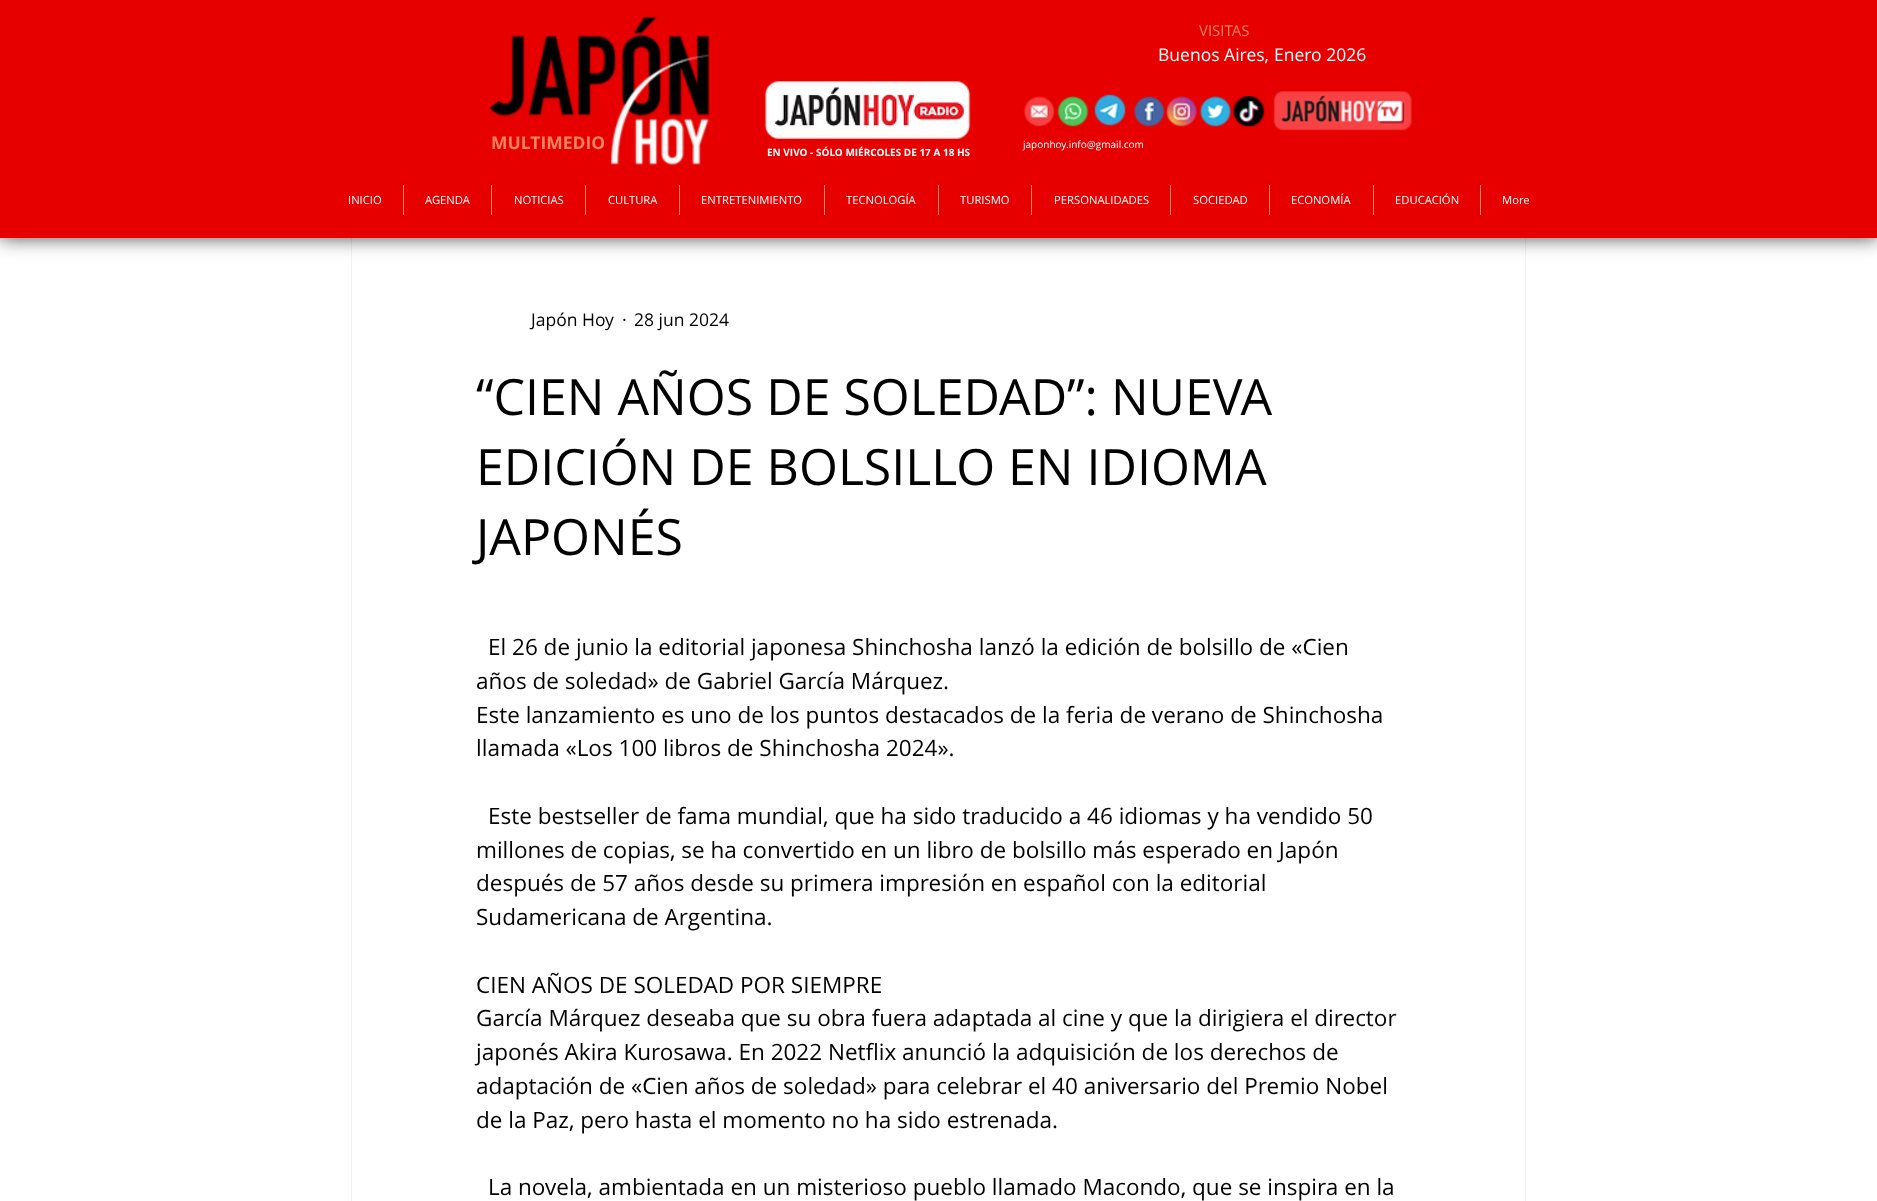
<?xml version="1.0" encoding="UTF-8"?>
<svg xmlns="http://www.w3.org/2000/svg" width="1877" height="1201">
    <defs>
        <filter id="blur1" x="-50%" y="-200%" width="200%" height="500%"><feGaussianBlur stdDeviation="9.5"/></filter>
    </defs>
    <rect width="100%" height="100%" fill="#FFFFFF"/>
    <rect x="351.5" y="223.5" width="1174" height="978" fill="none" stroke="#F2F2F1"/>
    <rect x="0" y="0" width="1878" height="238" fill="#000000" fill-opacity="0.7" filter="url(#blur1)"/>
    <rect x="0" y="0" width="1877" height="238" fill="#E60000"/>
    <text x="1199" y="36" font-family="Open Sans" font-size="15" fill="#FF845F">VISITAS</text>
    <text x="1158" y="61" font-family="Open Sans" font-size="17.5" fill="#FFFFFF">Buenos Aires,</text>
    <text x="1274" y="61" font-family="Open Sans" font-size="17.5" fill="#FFFFFF">Enero 2026</text>
    <image x="489" y="16" width="221" height="150" href="img_01.png"/>
    <text x="491" y="149" font-family="Open Sans" font-size="17.5" font-weight="700" fill="#FF845F">MULTIMEDIO</text>
    <image x="764" y="81" width="207" height="58" href="img_02.png"/>
    <image x="1023" y="96" width="32" height="31" href="img_03.png"/>
    <image x="1057" y="96" width="32" height="31" href="img_04.png"/>
    <image x="1094" y="94" width="32" height="32" href="img_05.png"/>
    <image x="1133" y="96" width="32" height="31" href="img_06.png"/>
    <image x="1166" y="96" width="32" height="31" href="img_07.png"/>
    <image x="1199" y="96" width="33" height="31" href="img_08.png"/>
    <image x="1233" y="96" width="32" height="31" href="img_09.png"/>
    <image x="1273" y="91" width="139" height="40" href="img_10.png"/>
    <text x="767" y="156" font-family="Open Sans" font-size="10" font-weight="700" fill="#FFFFFF">EN VIVO - SÓLO MIÉRCOLES DE 17 A 18 HS</text>
    <text x="1023" y="148" font-family="Open Sans" font-size="10" fill="#FFFFFF">japonhoy.info@gmail.com</text>
    <text x="348" y="204" font-family="Open Sans" font-size="11.25" fill="#FFFFFF">INICIO</text>
    <rect x="403" y="185" width="1" height="30" fill="#FF845F"/>
    <text x="425" y="204" font-family="Open Sans" font-size="11.25" fill="#FFFFFF">AGENDA</text>
    <rect x="491" y="185" width="1" height="30" fill="#FF845F"/>
    <text x="514" y="204" font-family="Open Sans" font-size="11.25" fill="#FFFFFF">NOTICIAS</text>
    <rect x="585" y="185" width="1" height="30" fill="#FF845F"/>
    <text x="608" y="204" font-family="Open Sans" font-size="11.25" fill="#FFFFFF">CULTURA</text>
    <rect x="679" y="185" width="1" height="30" fill="#FF845F"/>
    <text x="701" y="204" font-family="Open Sans" font-size="11.25" fill="#FFFFFF">ENTRETENIMIENTO</text>
    <rect x="824" y="185" width="1" height="30" fill="#FF845F"/>
    <text x="846" y="204" font-family="Open Sans" font-size="11.25" fill="#FFFFFF">TECNOLOGÍA</text>
    <rect x="938" y="185" width="1" height="30" fill="#FF845F"/>
    <text x="960" y="204" font-family="Open Sans" font-size="11.25" fill="#FFFFFF">TURISMO</text>
    <rect x="1031" y="185" width="1" height="30" fill="#FF845F"/>
    <text x="1054" y="204" font-family="Open Sans" font-size="11.25" fill="#FFFFFF">PERSONALIDADES</text>
    <rect x="1170" y="185" width="1" height="30" fill="#FF845F"/>
    <text x="1193" y="204" font-family="Open Sans" font-size="11.25" fill="#FFFFFF">SOCIEDAD</text>
    <rect x="1269" y="185" width="1" height="30" fill="#FF845F"/>
    <text x="1291" y="204" font-family="Open Sans" font-size="11.25" fill="#FFFFFF">ECONOMÍA</text>
    <rect x="1373" y="185" width="1" height="30" fill="#FF845F"/>
    <text x="1395" y="204" font-family="Open Sans" font-size="11.25" fill="#FFFFFF">EDUCACIÓN</text>
    <rect x="1480" y="185" width="1" height="30" fill="#FF845F"/>
    <text x="1502" y="204" font-family="Open Sans" font-size="11.25" fill="#FFFFFF">More</text>
    <text x="531" y="326" font-family="Open Sans" font-size="17.5" fill="#000000">Japón Hoy</text>
    <text x="622" y="326" font-family="Open Sans" font-size="17.5" fill="#000000">·</text>
    <text x="634" y="326" font-family="Open Sans" font-size="17.5" fill="#000000">28 jun 2024</text>
    <text font-family="Open Sans" font-size="50" fill="#000000">
        <tspan x="476" y="415">“CIEN AÑOS DE SOLEDAD”: NUEVA</tspan>
        <tspan x="476" y="485">EDICIÓN DE BOLSILLO EN IDIOMA</tspan>
        <tspan x="476" y="555">JAPONÉS</tspan>
    </text>
    <text x="488" y="655" font-family="Open Sans" font-size="22.5" fill="#000000">El 26 de junio la editorial japonesa Shinchosha lanzó la edición de bolsillo de «Cien</text>
    <text font-family="Open Sans" font-size="22.5" fill="#000000">
        <tspan x="476" y="689">años de soledad» de Gabriel García Márquez.</tspan>
        <tspan x="476" y="723">Este lanzamiento es uno de los puntos destacados de la feria de verano de Shinchosha</tspan>
        <tspan x="476" y="756">llamada «Los 100 libros de Shinchosha 2024».</tspan>
    </text>
    <text x="488" y="824" font-family="Open Sans" font-size="22.5" fill="#000000">Este bestseller de fama mundial, que ha sido traducido a 46 idiomas y ha vendido 50</text>
    <text font-family="Open Sans" font-size="22.5" fill="#000000">
        <tspan x="476" y="858">millones de copias, se ha convertido en un libro de bolsillo más esperado en Japón</tspan>
        <tspan x="476" y="891">después de 57 años desde su primera impresión en español con la editorial</tspan>
        <tspan x="476" y="925">Sudamericana de Argentina.</tspan>
    </text>
    <text font-family="Open Sans" font-size="22.5" fill="#000000">
        <tspan x="476" y="993">CIEN AÑOS DE SOLEDAD POR SIEMPRE</tspan>
        <tspan x="476" y="1026">García Márquez deseaba que su obra fuera adaptada al cine y que la dirigiera el director</tspan>
        <tspan x="476" y="1060">japonés Akira Kurosawa. En 2022 Netflix anunció la adquisición de los derechos de</tspan>
        <tspan x="476" y="1094">adaptación de «Cien años de soledad» para celebrar el 40 aniversario del Premio Nobel</tspan>
        <tspan x="476" y="1128">de la Paz, pero hasta el momento no ha sido estrenada.</tspan>
    </text>
    <text x="488" y="1195" font-family="Open Sans" font-size="22.5" fill="#000000">La novela, ambientada en un misterioso pueblo llamado Macondo, que se inspira en la</text>
</svg>
